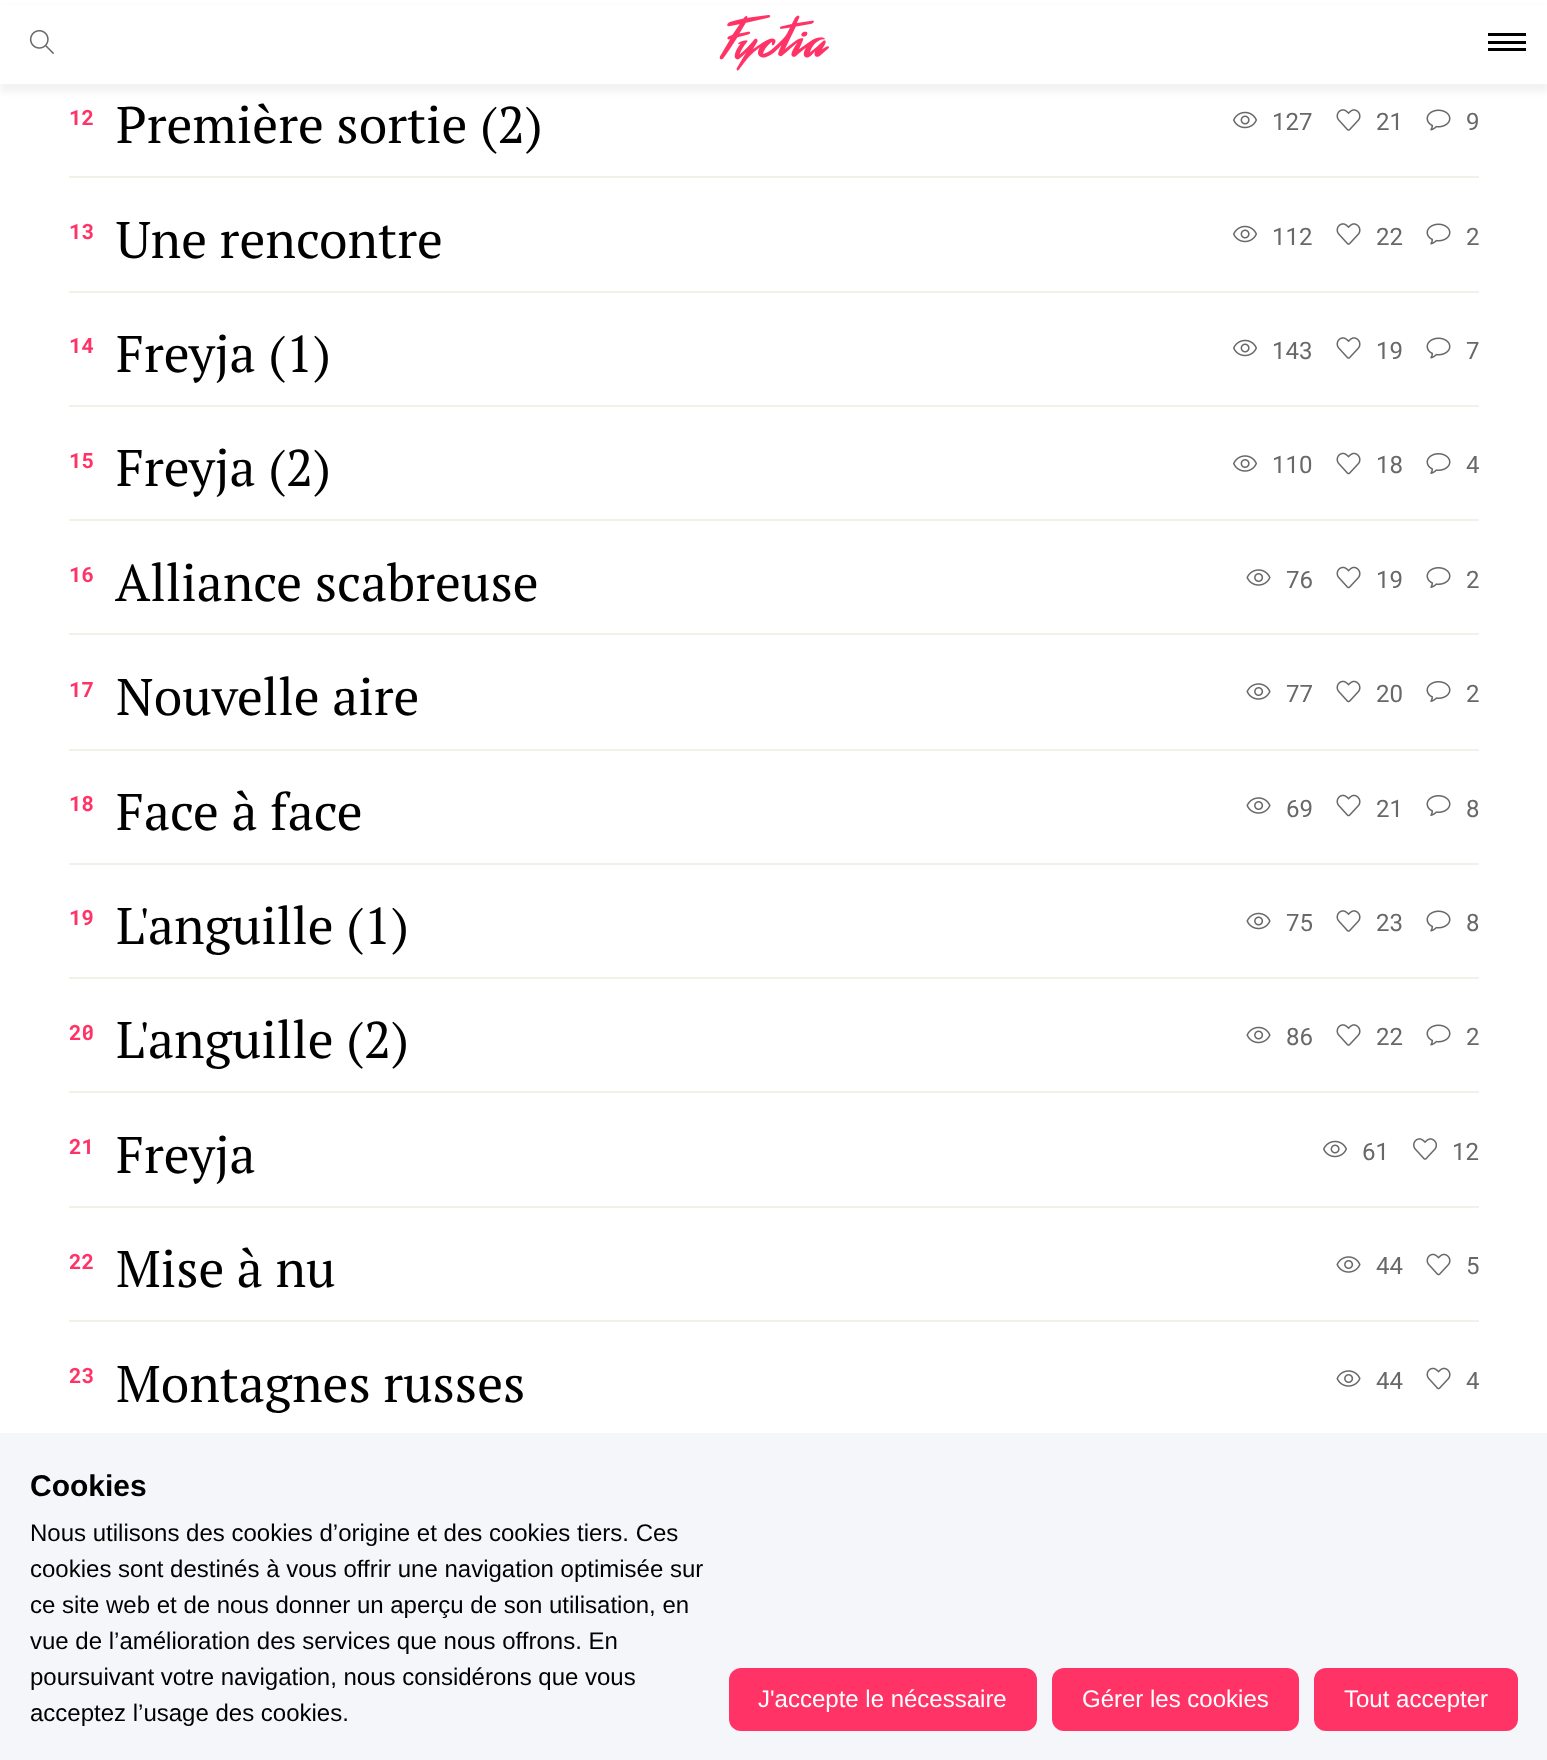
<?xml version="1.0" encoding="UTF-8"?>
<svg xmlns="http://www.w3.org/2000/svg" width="1547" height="1760">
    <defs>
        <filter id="blur1" x="-50%" y="-200%" width="200%" height="500%"><feGaussianBlur stdDeviation="3"/></filter>
    </defs>
    <rect width="100%" height="100%" fill="#FFFFFF"/>
    <rect x="0" y="8" width="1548" height="84" fill="#000000" fill-opacity="0.05" filter="url(#blur1)"/>
    <rect x="0" y="5" width="1547" height="79" fill="#FFFFFF"/>
    <image x="29" y="30" width="25" height="24" href="img_01.png"/>
    <image x="719" y="15" width="110" height="56" href="img_02.png"/>
    <rect x="1488" y="41" width="38" height="3" fill="#000000"/>
    <rect x="1488" y="33" width="38" height="3" fill="#000000"/>
    <rect x="1488" y="48" width="38" height="3" fill="#000000"/>
    <rect x="69" y="176" width="1410" height="2" fill="#F1F1E8"/>
    <text x="69" y="125" font-family="Roboto Mono" font-size="21" font-weight="700" fill="#FF3366">12</text>
    <text x="116" y="143" font-family="PT Serif" font-size="51.5" fill="#000000">Première sortie (2)</text>
    <image x="1233" y="111" width="24" height="18" href="img_03.png"/>
    <text x="1272" y="130" font-family="Roboto" font-size="24" fill="#686868">127</text>
    <image x="1336" y="109" width="25" height="22" href="img_04.png"/>
    <text x="1376" y="130" font-family="Roboto" font-size="24" fill="#686868">21</text>
    <image x="1426" y="109" width="25" height="22" href="img_05.png"/>
    <text x="1466" y="130" font-family="Roboto" font-size="24" fill="#686868">9</text>
    <rect x="69" y="291" width="1410" height="2" fill="#F1F1E8"/>
    <text x="69" y="239" font-family="Roboto Mono" font-size="21" font-weight="700" fill="#FF3366">13</text>
    <text x="116" y="258" font-family="PT Serif" font-size="51.5" fill="#000000">Une rencontre</text>
    <image x="1233" y="225" width="24" height="18" href="img_03.png"/>
    <text x="1272" y="245" font-family="Roboto" font-size="24" fill="#686868">112</text>
    <image x="1336" y="223" width="25" height="22" href="img_04.png"/>
    <text x="1376" y="245" font-family="Roboto" font-size="24" fill="#686868">22</text>
    <image x="1426" y="223" width="25" height="22" href="img_05.png"/>
    <text x="1466" y="245" font-family="Roboto" font-size="24" fill="#686868">2</text>
    <rect x="69" y="405" width="1410" height="2" fill="#F1F1E8"/>
    <text x="69" y="353" font-family="Roboto Mono" font-size="21" font-weight="700" fill="#FF3366">14</text>
    <text x="116" y="372" font-family="PT Serif" font-size="51.5" fill="#000000">Freyja (1)</text>
    <image x="1233" y="339" width="24" height="18" href="img_03.png"/>
    <text x="1272" y="359" font-family="Roboto" font-size="24" fill="#686868">143</text>
    <image x="1336" y="337" width="25" height="22" href="img_04.png"/>
    <text x="1376" y="359" font-family="Roboto" font-size="24" fill="#686868">19</text>
    <image x="1426" y="337" width="25" height="22" href="img_05.png"/>
    <text x="1466" y="359" font-family="Roboto" font-size="24" fill="#686868">7</text>
    <rect x="69" y="519" width="1410" height="2" fill="#F1F1E8"/>
    <text x="69" y="468" font-family="Roboto Mono" font-size="21" font-weight="700" fill="#FF3366">15</text>
    <text x="116" y="486" font-family="PT Serif" font-size="51.5" fill="#000000">Freyja (2)</text>
    <image x="1233" y="455" width="24" height="17" href="img_06.png"/>
    <text x="1272" y="473" font-family="Roboto" font-size="24" fill="#686868">110</text>
    <image x="1336" y="452" width="25" height="23" href="img_07.png"/>
    <text x="1376" y="473" font-family="Roboto" font-size="24" fill="#686868">18</text>
    <image x="1426" y="453" width="25" height="21" href="img_08.png"/>
    <text x="1466" y="473" font-family="Roboto" font-size="24" fill="#686868">4</text>
    <rect x="69" y="633" width="1410" height="2" fill="#F1F1E8"/>
    <text x="69" y="582" font-family="Roboto Mono" font-size="21" font-weight="700" fill="#FF3366">16</text>
    <text x="115" y="601" font-family="PT Serif" font-size="51.5" fill="#000000">Alliance scabreuse</text>
    <image x="1246" y="569" width="25" height="17" href="img_09.png"/>
    <text x="1286" y="588" font-family="Roboto" font-size="24" fill="#686868">76</text>
    <image x="1336" y="566" width="25" height="23" href="img_07.png"/>
    <text x="1376" y="588" font-family="Roboto" font-size="24" fill="#686868">19</text>
    <image x="1426" y="567" width="25" height="21" href="img_08.png"/>
    <text x="1466" y="588" font-family="Roboto" font-size="24" fill="#686868">2</text>
    <rect x="69" y="749" width="1410" height="2" fill="#F1F1E8"/>
    <text x="69" y="697" font-family="Roboto Mono" font-size="21" font-weight="700" fill="#FF3366">17</text>
    <text x="116" y="715" font-family="PT Serif" font-size="51.5" fill="#000000">Nouvelle aire</text>
    <image x="1246" y="683" width="25" height="17" href="img_09.png"/>
    <text x="1286" y="702" font-family="Roboto" font-size="24" fill="#686868">77</text>
    <image x="1336" y="680" width="25" height="23" href="img_07.png"/>
    <text x="1376" y="702" font-family="Roboto" font-size="24" fill="#686868">20</text>
    <image x="1426" y="681" width="25" height="21" href="img_08.png"/>
    <text x="1466" y="702" font-family="Roboto" font-size="24" fill="#686868">2</text>
    <rect x="69" y="863" width="1410" height="2" fill="#F1F1E8"/>
    <text x="69" y="811" font-family="Roboto Mono" font-size="21" font-weight="700" fill="#FF3366">18</text>
    <text x="116" y="830" font-family="PT Serif" font-size="51.5" fill="#000000">Face à face</text>
    <image x="1246" y="797" width="25" height="17" href="img_09.png"/>
    <text x="1286" y="817" font-family="Roboto" font-size="24" fill="#686868">69</text>
    <image x="1336" y="794" width="25" height="23" href="img_07.png"/>
    <text x="1376" y="817" font-family="Roboto" font-size="24" fill="#686868">21</text>
    <image x="1426" y="795" width="25" height="21" href="img_08.png"/>
    <text x="1466" y="817" font-family="Roboto" font-size="24" fill="#686868">8</text>
    <rect x="69" y="977" width="1410" height="2" fill="#F1F1E8"/>
    <text x="69" y="925" font-family="Roboto Mono" font-size="21" font-weight="700" fill="#FF3366">19</text>
    <text x="116" y="944" font-family="PT Serif" font-size="51.5" fill="#000000">L'anguille (1)</text>
    <image x="1246" y="912" width="25" height="18" href="img_10.png"/>
    <text x="1286" y="931" font-family="Roboto" font-size="24" fill="#686868">75</text>
    <image x="1336" y="910" width="25" height="22" href="img_04.png"/>
    <text x="1376" y="931" font-family="Roboto" font-size="24" fill="#686868">23</text>
    <image x="1426" y="910" width="25" height="22" href="img_05.png"/>
    <text x="1466" y="931" font-family="Roboto" font-size="24" fill="#686868">8</text>
    <rect x="69" y="1091" width="1410" height="2" fill="#F1F1E8"/>
    <text x="69" y="1040" font-family="Roboto Mono" font-size="21" font-weight="700" fill="#FF3366">20</text>
    <text x="116" y="1058" font-family="PT Serif" font-size="51.5" fill="#000000">L'anguille (2)</text>
    <image x="1246" y="1026" width="25" height="18" href="img_10.png"/>
    <text x="1286" y="1045" font-family="Roboto" font-size="24" fill="#686868">86</text>
    <image x="1336" y="1024" width="25" height="22" href="img_04.png"/>
    <text x="1376" y="1045" font-family="Roboto" font-size="24" fill="#686868">22</text>
    <image x="1426" y="1024" width="25" height="22" href="img_05.png"/>
    <text x="1466" y="1045" font-family="Roboto" font-size="24" fill="#686868">2</text>
    <rect x="69" y="1206" width="1410" height="2" fill="#F1F1E8"/>
    <text x="69" y="1154" font-family="Roboto Mono" font-size="21" font-weight="700" fill="#FF3366">21</text>
    <text x="116" y="1173" font-family="PT Serif" font-size="51.5" fill="#000000">Freyja</text>
    <image x="1323" y="1140" width="24" height="18" href="img_03.png"/>
    <text x="1362" y="1160" font-family="Roboto" font-size="24" fill="#686868">61</text>
    <image x="1413" y="1138" width="24" height="22" href="img_11.png"/>
    <text x="1452" y="1160" font-family="Roboto" font-size="24" fill="#686868">12</text>
    <rect x="69" y="1320" width="1410" height="2" fill="#F1F1E8"/>
    <text x="69" y="1269" font-family="Roboto Mono" font-size="21" font-weight="700" fill="#FF3366">22</text>
    <text x="116" y="1287" font-family="PT Serif" font-size="51.5" fill="#000000">Mise à nu</text>
    <image x="1336" y="1256" width="25" height="17" href="img_09.png"/>
    <text x="1376" y="1274" font-family="Roboto" font-size="24" fill="#686868">44</text>
    <image x="1426" y="1253" width="25" height="23" href="img_07.png"/>
    <text x="1466" y="1274" font-family="Roboto" font-size="24" fill="#686868">5</text>
    <text x="69" y="1383" font-family="Roboto Mono" font-size="21" font-weight="700" fill="#FF3366">23</text>
    <text x="116" y="1402" font-family="PT Serif" font-size="51.5" fill="#000000">Montagnes russes</text>
    <image x="1336" y="1370" width="25" height="17" href="img_09.png"/>
    <text x="1376" y="1389" font-family="Roboto" font-size="24" fill="#686868">44</text>
    <image x="1426" y="1367" width="25" height="23" href="img_07.png"/>
    <text x="1466" y="1389" font-family="Roboto" font-size="24" fill="#686868">4</text>
    <rect x="0" y="1433" width="1547" height="327" fill="#F5F6FA"/>
    <text x="30" y="1496" font-family="Liberation Sans" font-size="30" font-weight="700" fill="#000000">Cookies</text>
    <text font-family="Liberation Sans" font-size="24" fill="#000000">
        <tspan x="30" y="1541">Nous utilisons des cookies d’origine et des cookies tiers. Ces</tspan>
        <tspan x="30" y="1577">cookies sont destinés à vous offrir une navigation optimisée sur</tspan>
        <tspan x="30" y="1613">ce site web et de nous donner un aperçu de son utilisation, en</tspan>
        <tspan x="30" y="1649">vue de l’amélioration des services que nous offrons. En</tspan>
        <tspan x="30" y="1685">poursuivant votre navigation, nous considérons que vous</tspan>
        <tspan x="30" y="1721">acceptez l’usage des cookies.</tspan>
    </text>
    <rect x="729" y="1668" width="308" height="63" rx="12" fill="#FF3366"/>
    <text x="758" y="1707" font-family="Liberation Sans" font-size="24" fill="#FFFFFF">J'accepte le nécessaire</text>
    <rect x="1052" y="1668" width="247" height="63" rx="12" fill="#FF3366"/>
    <text x="1082" y="1707" font-family="Liberation Sans" font-size="24" fill="#FFFFFF">Gérer les cookies</text>
    <rect x="1314" y="1668" width="204" height="63" rx="12" fill="#FF3366"/>
    <text x="1344" y="1707" font-family="Liberation Sans" font-size="24" fill="#FFFFFF">Tout accepter</text>
</svg>
